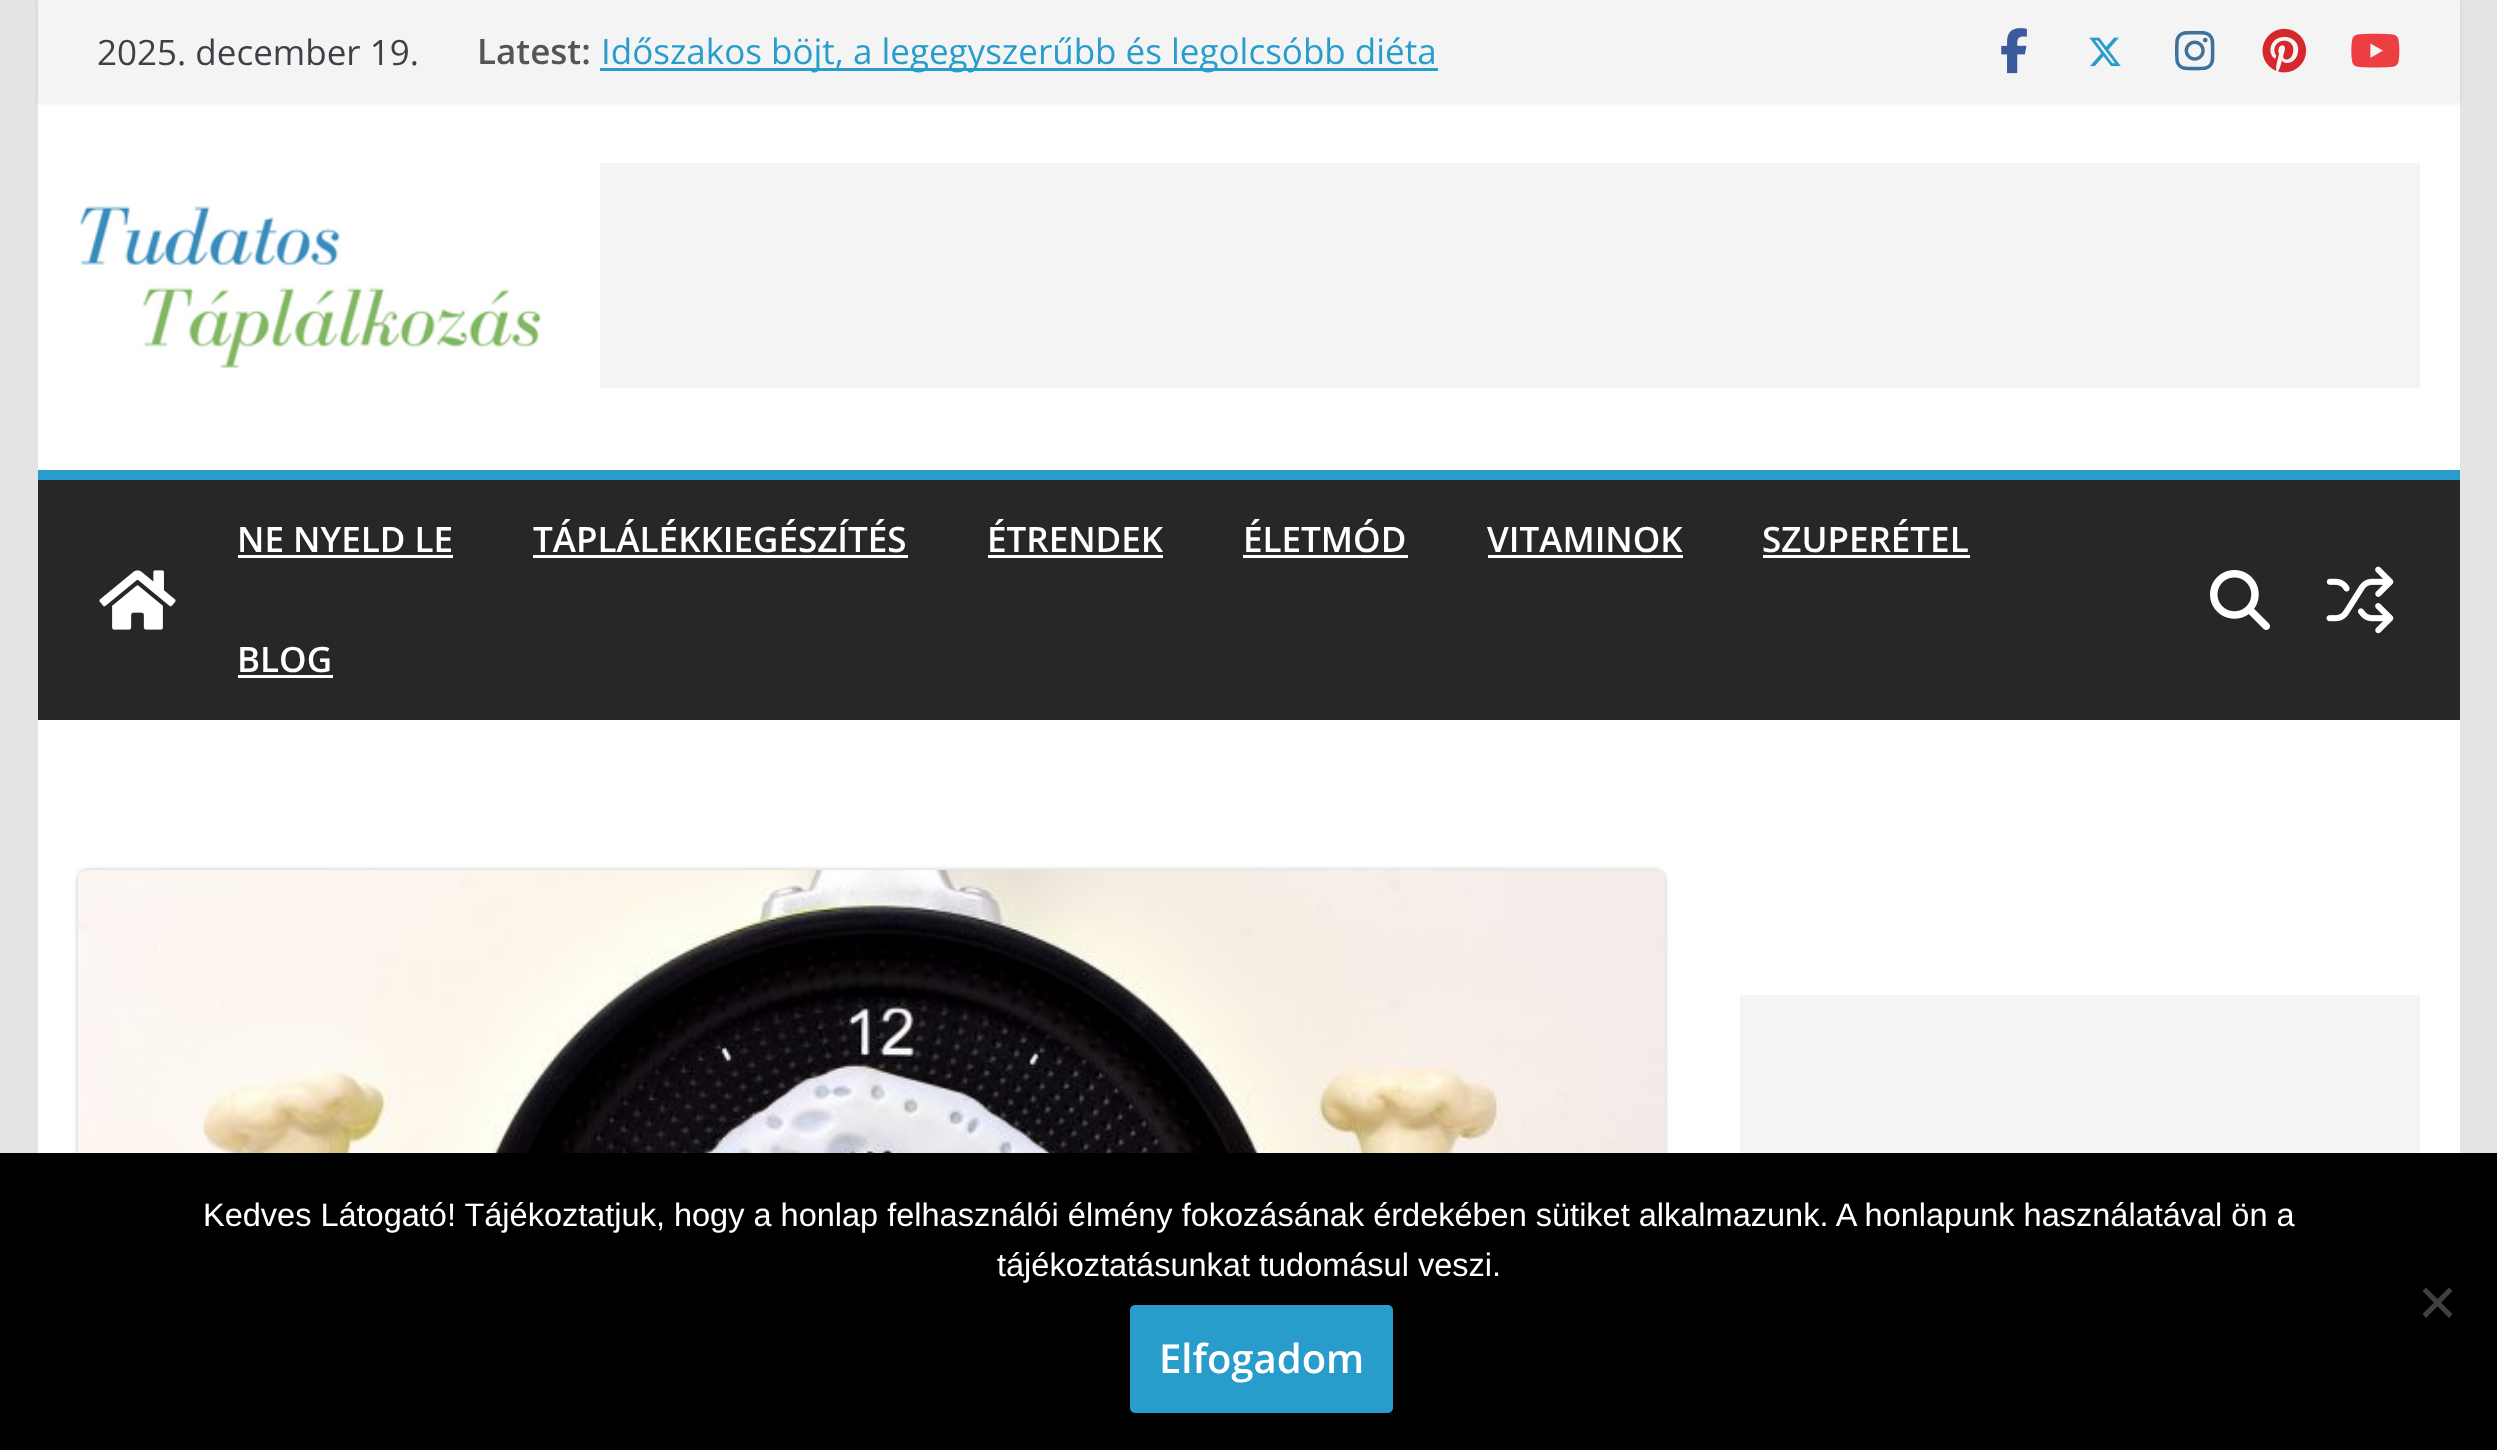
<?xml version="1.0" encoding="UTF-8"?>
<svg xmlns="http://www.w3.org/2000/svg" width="2497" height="1450">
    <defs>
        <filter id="blur1" x="-50%" y="-200%" width="200%" height="500%"><feGaussianBlur stdDeviation="2.5"/></filter>
    </defs>
    <rect width="100%" height="100%" fill="#E4E4E7"/>
    <rect x="38" y="103" width="2422" height="367" fill="#FFFFFF"/>
    <rect x="38" y="0" width="2422" height="103" fill="#000000" fill-opacity="0.1" filter="url(#blur1)"/>
    <rect x="38" y="0" width="2422" height="103" fill="#F4F4F5"/>
    <text x="97" y="65" font-family="Open Sans" font-size="35" fill="#3F3F46">2025. december 19.</text>
    <text x="477" y="64" font-family="Open Sans" font-size="35" font-weight="600" fill="#555555">Latest:</text>
    <rect x="600" y="68" width="838" height="3" fill="#289DCC"/>
    <text x="601" y="64" font-family="Open Sans" font-size="35" fill="#289DCC">Időszakos böjt, a legegyszerűbb és legolcsóbb diéta</text>
    <image x="2001" y="28" width="26" height="46" href="img_01.png"/>
    <image x="2089" y="37" width="32" height="30" href="img_02.png"/>
    <image x="2175" y="30" width="40" height="41" href="img_03.png"/>
    <image x="2262" y="28" width="45" height="45" href="img_04.png"/>
    <image x="2351" y="33" width="49" height="35" href="img_05.png"/>
    <image x="79" y="206" width="463" height="162" href="img_06.png"/>
    <rect x="600" y="163" width="1820" height="225" fill="#F4F4F5"/>
    <rect x="38" y="480" width="2422" height="240" fill="#27272A"/>
    <rect x="38" y="470" width="2422" height="10" fill="#289DCC"/>
    <image x="99" y="570" width="77" height="60" href="img_07.png"/>
    <text x="237" y="552" font-family="Open Sans" font-size="35" font-weight="600" fill="#FFFFFF">NE NYELD LE</text>
    <rect x="238" y="555" width="215" height="3" fill="#FFFFFF"/>
    <text x="533" y="552" font-family="Open Sans" font-size="35" font-weight="600" fill="#FFFFFF">TÁPLÁLÉKKIEGÉSZÍTÉS</text>
    <rect x="533" y="555" width="375" height="3" fill="#FFFFFF"/>
    <text x="987" y="552" font-family="Open Sans" font-size="35" font-weight="600" fill="#FFFFFF">ÉTRENDEK</text>
    <rect x="988" y="555" width="175" height="3" fill="#FFFFFF"/>
    <text x="1243" y="552" font-family="Open Sans" font-size="35" font-weight="600" fill="#FFFFFF">ÉLETMÓD</text>
    <rect x="1243" y="555" width="165" height="3" fill="#FFFFFF"/>
    <text x="1487" y="552" font-family="Open Sans" font-size="35" font-weight="600" fill="#FFFFFF">VITAMINOK</text>
    <rect x="1488" y="555" width="195" height="3" fill="#FFFFFF"/>
    <text x="1762" y="552" font-family="Open Sans" font-size="35" font-weight="600" fill="#FFFFFF">SZUPERÉTEL</text>
    <rect x="1763" y="555" width="207" height="3" fill="#FFFFFF"/>
    <text x="237" y="672" font-family="Open Sans" font-size="35" font-weight="600" fill="#FFFFFF">BLOG</text>
    <rect x="238" y="675" width="95" height="3" fill="#FFFFFF"/>
    <image x="2210" y="570" width="60" height="60" href="img_08.png"/>
    <image x="2326" y="566" width="68" height="68" href="img_09.png"/>
    <rect x="38" y="720" width="2422" height="433" fill="#FFFFFF"/>
    <rect x="78" y="870" width="1587" height="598" rx="10" fill="#000000" fill-opacity="0.24" filter="url(#blur1)"/>
    <image x="78" y="870" width="1587" height="283" href="img_10.png"/>
    <rect x="1740" y="995" width="680" height="158" fill="#F4F4F5"/>
    <rect x="0" y="1153" width="2497" height="297" fill="#000000"/>
    <text x="203" y="1226" font-family="Liberation Sans" font-size="32.5" fill="#FFFFFF">Kedves Látogató! Tájékoztatjuk, hogy a honlap felhasználói élmény fokozásának érdekében sütiket alkalmazunk. A honlapunk használatával ön a</text>
    <text x="997" y="1276" font-family="Liberation Sans" font-size="32.5" fill="#FFFFFF">tájékoztatásunkat tudomásul veszi.</text>
    <path d="M 2449 1287.5 L 2452.5 1291 L 2426 1318 L 2422.5 1314 Z" fill="#404040"/>
    <path d="M 2422.5 1291 L 2426 1287.5 L 2452.5 1314 L 2449 1318 Z" fill="#404040"/>
    <rect x="1131.5" y="1306.5" width="260" height="105" rx="3.5" fill="#289DCC" stroke="#289DCC" stroke-width="3"/>
    <text x="1159" y="1373" font-family="Open Sans" font-size="40" font-weight="600" fill="#FFFFFF">Elfogadom</text>
</svg>
